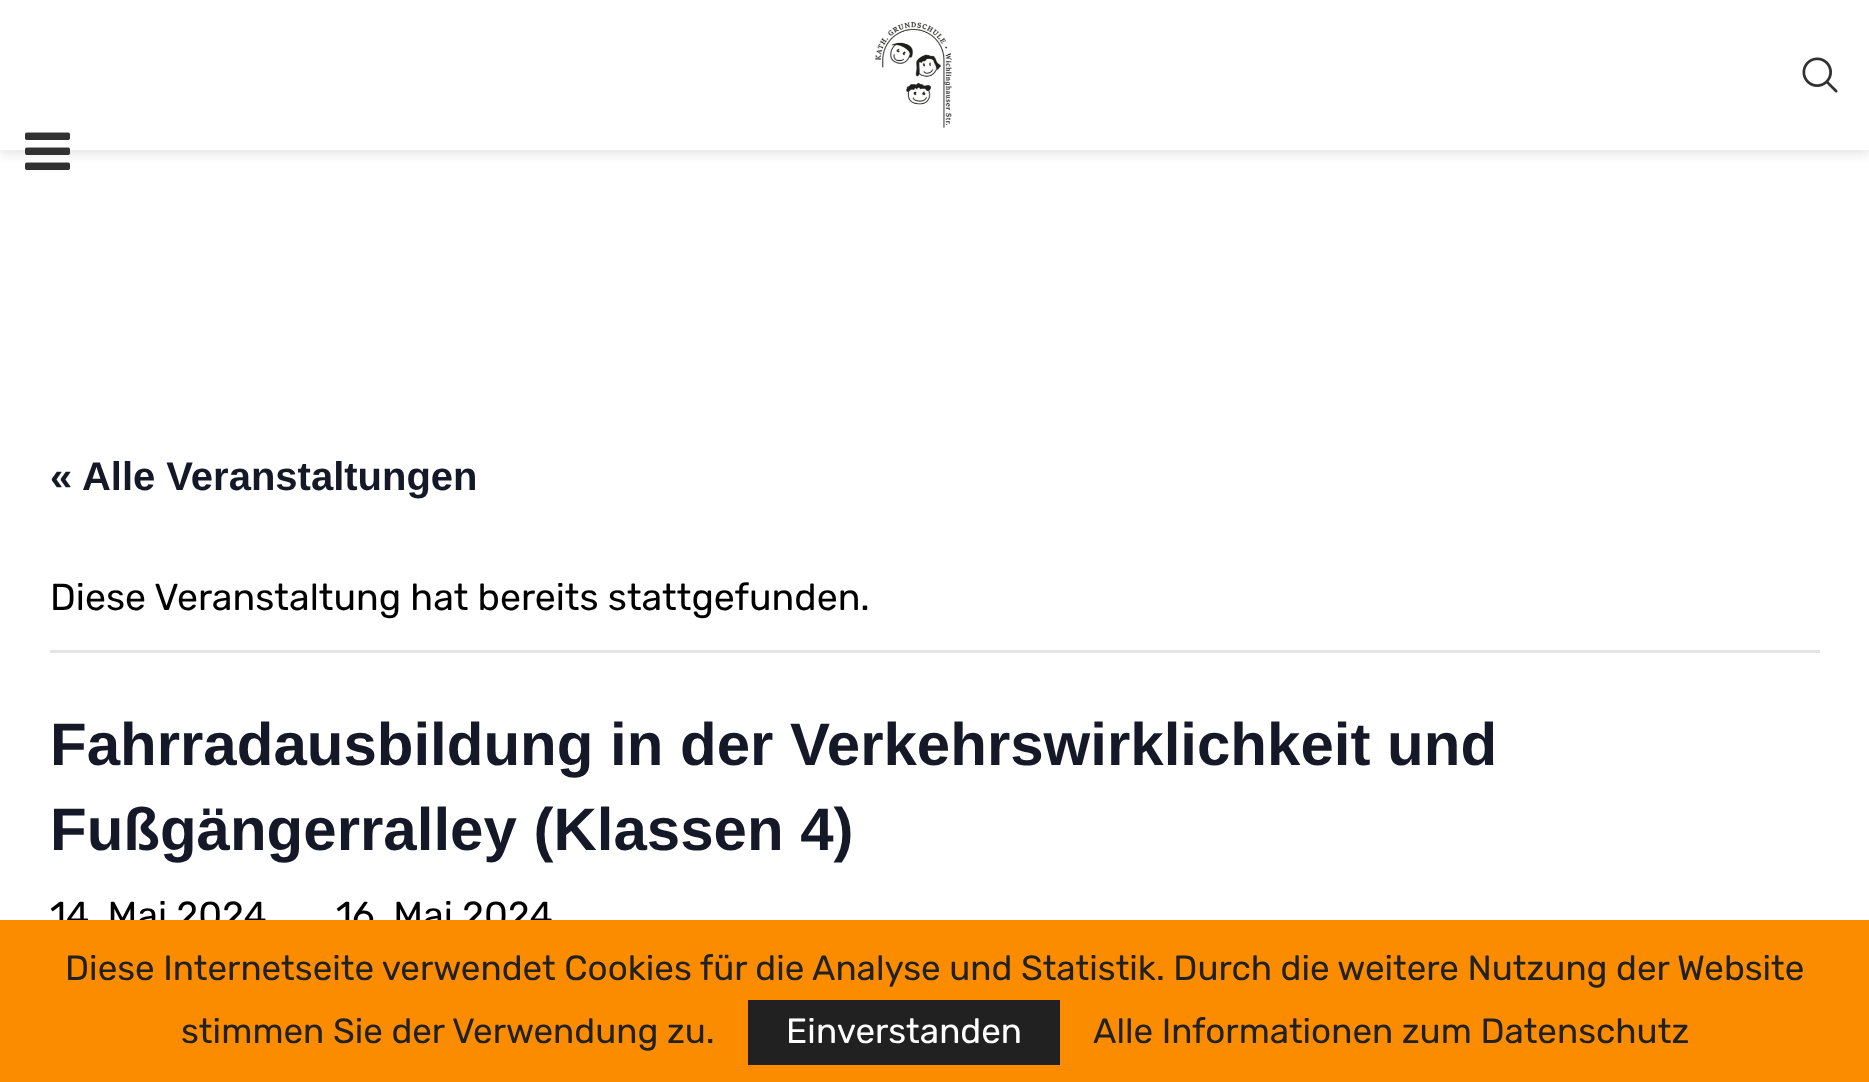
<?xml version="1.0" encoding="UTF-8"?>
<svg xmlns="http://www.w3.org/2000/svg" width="1869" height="1082">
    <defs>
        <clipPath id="clip1"><rect x="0" y="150" width="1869" height="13"/></clipPath>
        <filter id="blur1" x="-50%" y="-200%" width="200%" height="500%"><feGaussianBlur stdDeviation="6"/></filter>
    </defs>
    <rect width="100%" height="100%" fill="#FFFFFF"/>
    <g clip-path="url(#clip1)">
        <rect x="0" y="3" width="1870" height="150" fill="#BEBEBE" fill-opacity="0.46" filter="url(#blur1)"/>
    </g>
    <image x="875" y="21" width="77" height="107" href="img_01.png"/>
    <image x="1802" y="57" width="36" height="36" href="img_02.png"/>
    <image x="25" y="132" width="45" height="38" href="img_03.png"/>
    <text x="50" y="490" font-family="Liberation Sans" font-size="40" font-weight="700" fill="#141827">« Alle Veranstaltungen</text>
    <rect x="50" y="650" width="1770" height="3" fill="#E4E4E4"/>
    <text x="50" y="610" font-family="Rubik" font-size="37.5" fill="#000000">Diese Veranstaltung hat bereits stattgefunden.</text>
    <text font-family="Liberation Sans" font-size="60" font-weight="700" fill="#141827">
        <tspan x="50" y="765">Fahrradausbildung in der Verkehrswirklichkeit und</tspan>
        <tspan x="50" y="850">Fußgängerralley (Klassen 4)</tspan>
    </text>
    <text x="50" y="928" font-family="Rubik" font-size="37.5" fill="#000000">14. Mai 2024</text>
    <text x="336" y="928" font-family="Rubik" font-size="37.5" fill="#000000">16. Mai 2024</text>
    <rect x="0" y="920" width="1869" height="162" fill="#FB8C00"/>
    <text x="65" y="980" font-family="Rubik" font-size="35" fill="#212121">Diese Internetseite verwendet Cookies für die Analyse und Statistik. Durch die weitere Nutzung der Website</text>
    <text x="181" y="1043" font-family="Rubik" font-size="35" fill="#212121">stimmen Sie der Verwendung zu.</text>
    <rect x="748" y="1000" width="312" height="65" fill="#212121"/>
    <text x="786" y="1043" font-family="Rubik" font-size="35" fill="#FFFFFF">Einverstanden</text>
    <text x="1093" y="1043" font-family="Rubik" font-size="35" fill="#212121">Alle Informationen zum Datenschutz</text>
</svg>
